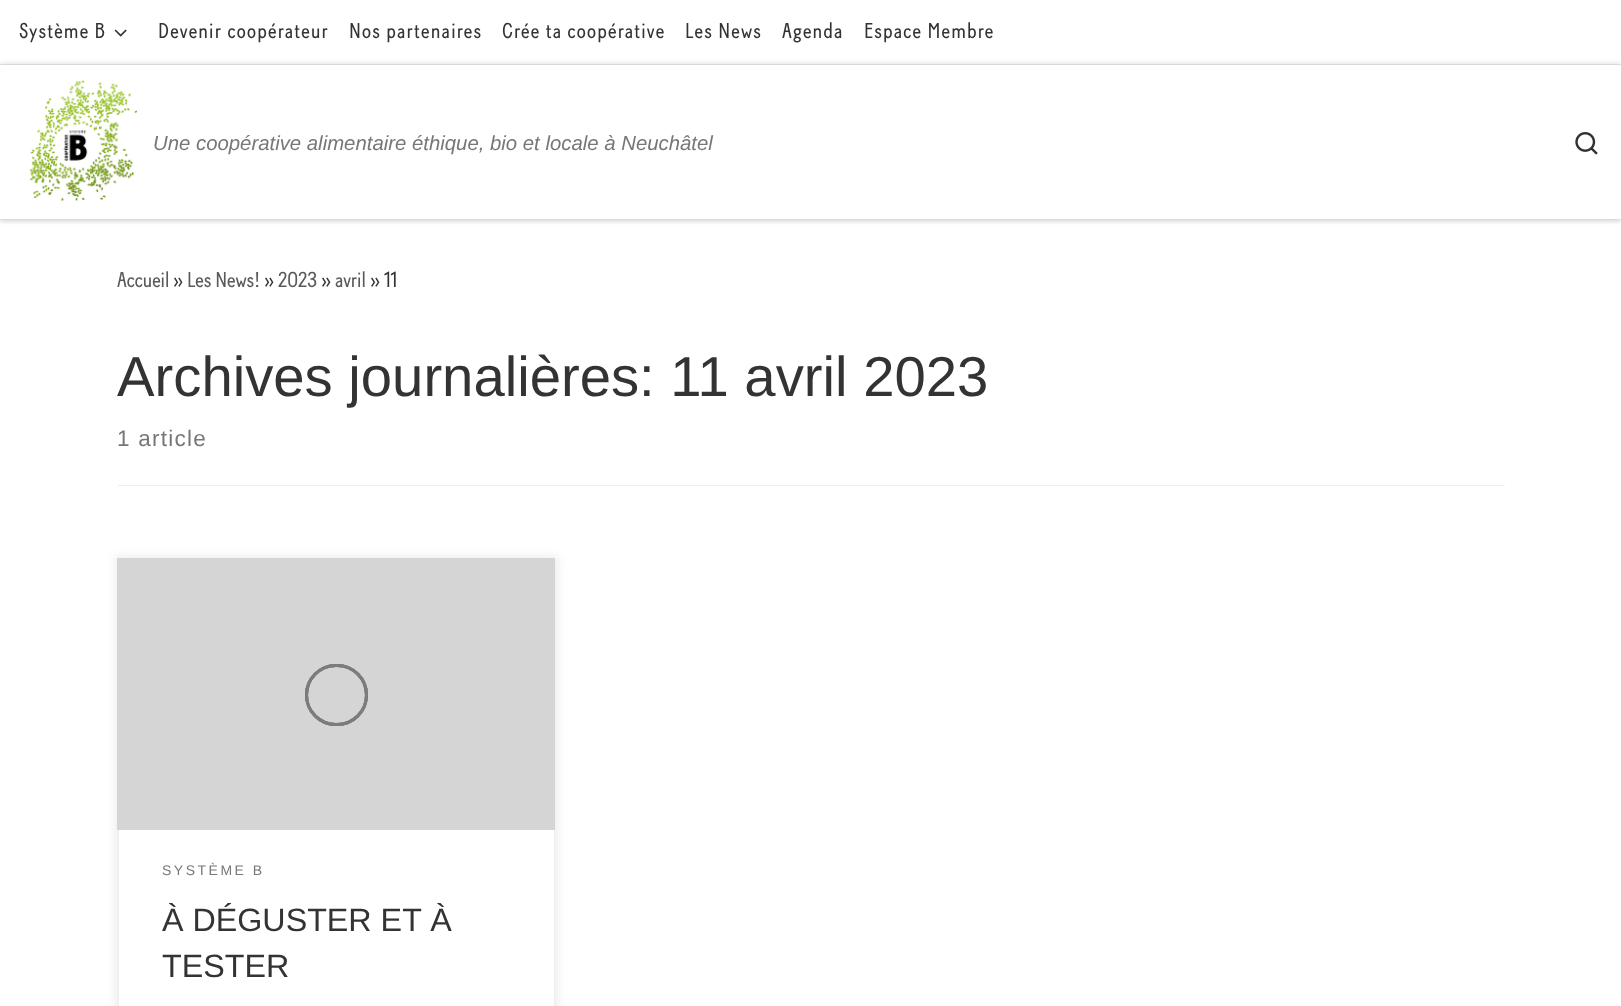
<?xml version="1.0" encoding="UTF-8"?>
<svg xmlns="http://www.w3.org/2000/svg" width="1621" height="1006">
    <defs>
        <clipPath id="clip1"><rect x="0" y="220" width="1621" height="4"/></clipPath>
        <filter id="blur1" x="-50%" y="-200%" width="200%" height="500%"><feGaussianBlur stdDeviation="1"/></filter>
        <filter id="blur2" x="-50%" y="-200%" width="200%" height="500%"><feGaussianBlur stdDeviation="3"/></filter>
        <clipPath id="clip2"><path d="M 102 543 H 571 V 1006 H 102 Z M 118 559 H 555 V 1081 H 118 Z" clip-rule="evenodd"/></clipPath>
        <filter id="blur3" x="-50%" y="-200%" width="200%" height="500%"><feGaussianBlur stdDeviation="4"/></filter>
    </defs>
    <rect width="100%" height="100%" fill="#FFFFFF"/>
    <g clip-path="url(#clip1)">
        <rect x="0" y="3" width="1621" height="220" fill="#666666" fill-opacity="0.08" filter="url(#blur1)"/>
    </g>
    <rect x="0" y="64" width="1621" height="1" fill="#ECECEC"/>
    <text x="19" y="38" font-family="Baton" font-size="21.5" letter-spacing="1.25" fill="#333333">Système B</text>
    <image x="114" y="29" width="13" height="8" href="img_01.png"/>
    <text x="158" y="38" font-family="Baton" font-size="21.5" letter-spacing="1.25" fill="#333333">Devenir coopérateur</text>
    <text x="349" y="38" font-family="Baton" font-size="21.5" letter-spacing="1.25" fill="#333333">Nos partenaires</text>
    <text x="502" y="38" font-family="Baton" font-size="21.5" letter-spacing="1.25" fill="#333333">Crée ta coopérative</text>
    <text x="685" y="38" font-family="Baton" font-size="21.5" letter-spacing="1.25" fill="#333333">Les News</text>
    <text x="782" y="38" font-family="Baton" font-size="21.5" letter-spacing="1.25" fill="#333333">Agenda</text>
    <text x="864" y="38" font-family="Baton" font-size="21.5" letter-spacing="1.25" fill="#333333">Espace Membre</text>
    <rect x="0" y="219" width="1621" height="1" fill="#EFEFEF"/>
    <rect x="0" y="65" width="1621" height="154" fill="#000000" fill-opacity="0.2" filter="url(#blur2)"/>
    <rect x="0" y="65" width="1621" height="154" fill="#FFFFFF"/>
    <image x="29" y="79" width="109" height="122" href="img_02.png"/>
    <text x="153" y="150" font-family="Liberation Sans" font-size="20.35" font-style="italic" fill="#777777">Une coopérative alimentaire éthique, bio et locale à Neuchâtel</text>
    <image x="1575" y="132" width="23" height="23" href="img_03.png"/>
    <text x="117" y="287" font-family="Baton" font-size="21.5" fill="#5A5A5A">Accueil</text>
    <text x="173" y="287" font-family="Baton" font-size="21.5" fill="#333333">»</text>
    <text x="187" y="287" font-family="Baton" font-size="21.5" fill="#5A5A5A">Les News!</text>
    <text x="264" y="287" font-family="Baton" font-size="21.5" fill="#333333">»</text>
    <text x="278" y="287" font-family="Baton" font-size="21.5" fill="#5A5A5A">2023</text>
    <text x="321" y="287" font-family="Baton" font-size="21.5" fill="#333333">»</text>
    <text x="335" y="287" font-family="Baton" font-size="21.5" fill="#5A5A5A">avril</text>
    <text x="370" y="287" font-family="Baton" font-size="21.5" fill="#333333">» 11</text>
    <text x="117" y="396" font-family="Liberation Sans" font-size="56.25" fill="#333333">Archives journalières: 11 avril 2023</text>
    <text x="117" y="446" font-family="Liberation Sans" font-size="22.5" letter-spacing="1.25" fill="#777777">1 article</text>
    <rect x="118" y="485" width="1387" height="1" fill="#ECEEEF"/>
    <g clip-path="url(#clip2)">
        <rect x="115" y="556" width="443" height="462" fill="#000000" fill-opacity="0.07" filter="url(#blur3)"/>
    </g>
    <rect x="118.5" y="559.5" width="436" height="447" fill="none" stroke="#EFEFEF"/>
    <rect x="117" y="558" width="438" height="272" fill="#D5D5D5"/>
    <rect x="306.5" y="665.5" width="60" height="59" rx="29.5" fill="none" stroke="#7C7C7C" stroke-width="3"/>
    <rect x="306.5" y="665.5" width="60" height="59" rx="29.5" fill="none" stroke="#7C7C7C" stroke-width="3"/>
    <rect x="306.5" y="665.5" width="60" height="59" rx="29.5" fill="none" stroke="#7C7C7C" stroke-width="3"/>
    <text x="162" y="875" font-family="Liberation Sans" font-size="14" letter-spacing="2.5" fill="#777777">SYSTÈME B</text>
    <text font-family="Liberation Sans" font-size="32.25" fill="#333333">
        <tspan x="162" y="931">À DÉGUSTER ET À</tspan>
        <tspan x="162" y="977">TESTER</tspan>
    </text>
</svg>
